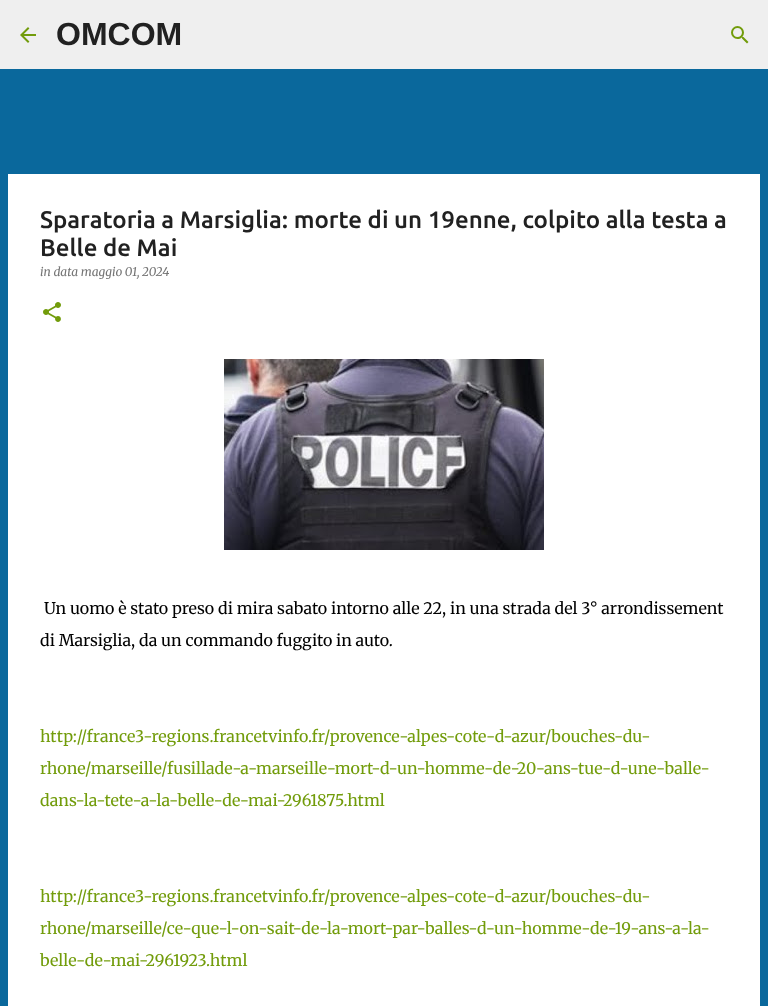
<?xml version="1.0" encoding="UTF-8"?>
<svg xmlns="http://www.w3.org/2000/svg" width="768" height="1006">
    <rect width="100%" height="100%" fill="#0A689C"/>
    <rect x="0" y="0" width="768" height="69" fill="#EFEFEF"/>
    <image x="20" y="27" width="16" height="16" href="img_01.png"/>
    <text x="56" y="45" font-family="Liberation Sans" font-size="32" font-weight="700" fill="#212121">OMCOM</text>
    <image x="731" y="26" width="18" height="18" href="img_02.png"/>
    <rect x="8" y="174" width="752" height="832" fill="#FFFFFF"/>
    <text font-family="Ubuntu" font-size="24" font-weight="500" fill="#212121">
        <tspan x="40" y="228">Sparatoria a Marsiglia: morte di un 19enne, colpito alla testa a</tspan>
        <tspan x="40" y="256">Belle de Mai</tspan>
    </text>
    <text x="40" y="276" font-family="Merriweather" font-size="12" font-style="italic" fill="#757575">in data maggio 01, 2024</text>
    <image x="43" y="302" width="18" height="20" href="img_03.png"/>
    <image x="224" y="359" width="320" height="191" href="img_04.png"/>
    <text x="44" y="614" font-family="Merriweather" font-size="16" font-weight="300" fill="#000000">Un uomo è stato preso di mira sabato intorno alle 22, in una strada del 3° arrondissement</text>
    <text x="40" y="646" font-family="Merriweather" font-size="16" font-weight="300" fill="#000000">di Marsiglia, da un commando fuggito in auto.</text>
    <text x="40" y="742" font-family="Merriweather" font-size="16" font-weight="300" fill="#729C0B">http://france3-regions.francetvinfo.fr/provence-alpes-cote-d-azur/bouches-du-</text>
    <text x="40" y="774" font-family="Merriweather" font-size="16" font-weight="300" fill="#729C0B">rhone/marseille/fusillade-a-marseille-mort-d-un-homme-de-20-ans-tue-d-une-balle-</text>
    <text x="40" y="806" font-family="Merriweather" font-size="16" font-weight="300" fill="#729C0B">dans-la-tete-a-la-belle-de-mai-2961875.html</text>
    <text x="40" y="902" font-family="Merriweather" font-size="16" font-weight="300" fill="#729C0B">http://france3-regions.francetvinfo.fr/provence-alpes-cote-d-azur/bouches-du-</text>
    <text x="40" y="934" font-family="Merriweather" font-size="16" font-weight="300" fill="#729C0B">rhone/marseille/ce-que-l-on-sait-de-la-mort-par-balles-d-un-homme-de-19-ans-a-la-</text>
    <text x="40" y="966" font-family="Merriweather" font-size="16" font-weight="300" fill="#729C0B">belle-de-mai-2961923.html</text>
</svg>
